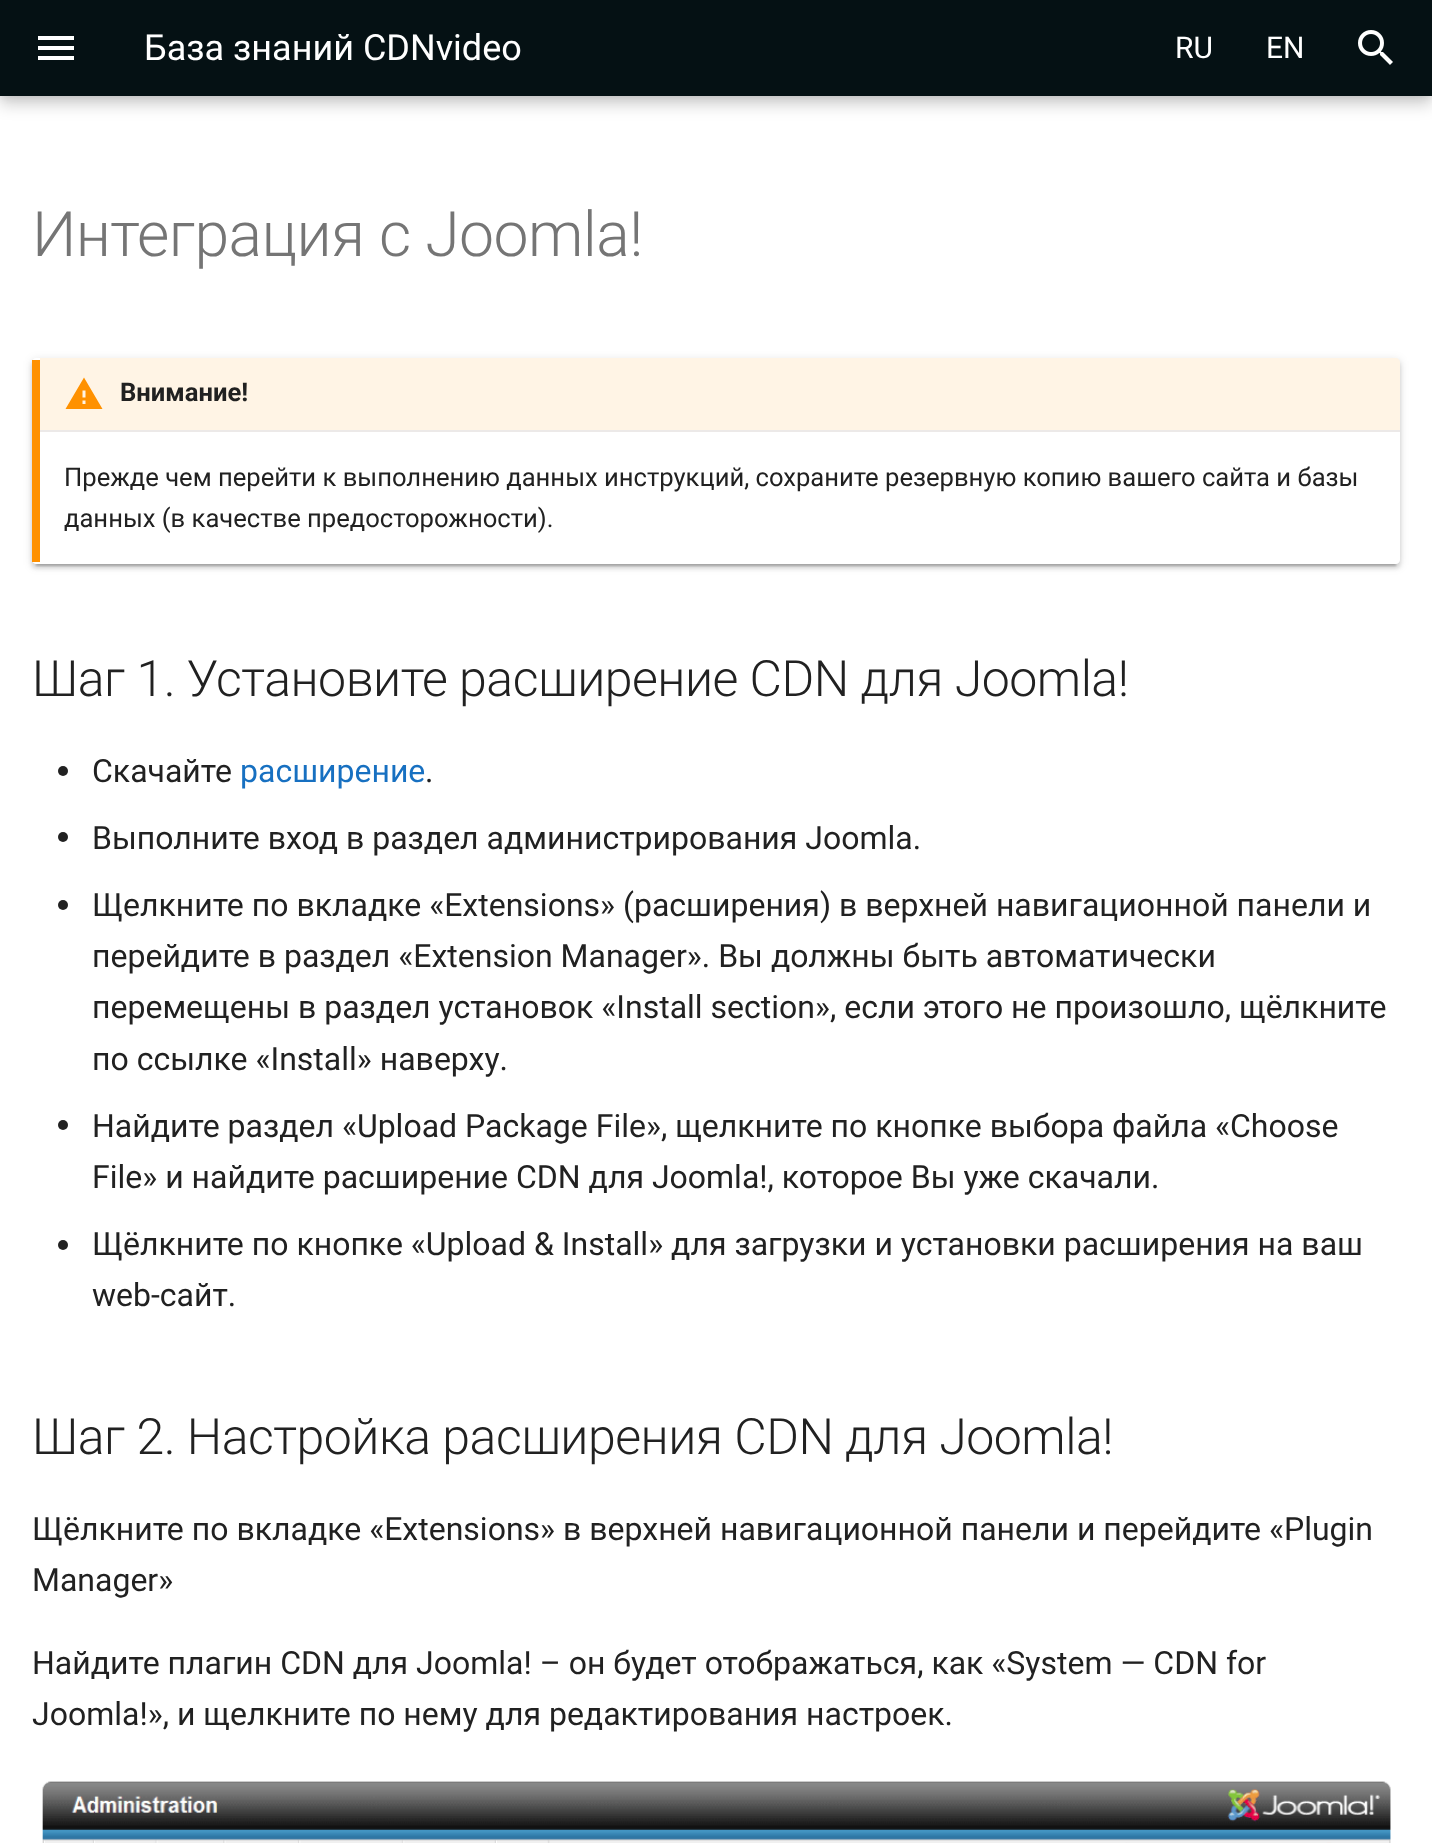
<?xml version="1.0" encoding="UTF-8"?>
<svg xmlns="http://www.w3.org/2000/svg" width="1432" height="1843">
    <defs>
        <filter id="blur1" x="-50%" y="-200%" width="200%" height="500%"><feGaussianBlur stdDeviation="8"/></filter>
        <filter id="blur2" x="-50%" y="-200%" width="200%" height="500%"><feGaussianBlur stdDeviation="4"/></filter>
        <clipPath id="clip1"><rect x="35" y="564" width="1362" height="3"/></clipPath>
        <filter id="blur3" x="-50%" y="-200%" width="200%" height="500%"><feGaussianBlur stdDeviation="1"/></filter>
        <clipPath id="clip2"><path d="M 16 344 H 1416 V 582 H 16 Z M 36 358 H 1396 C 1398 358 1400 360 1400 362 V 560 C 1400 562 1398 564 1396 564 H 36 C 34 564 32 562 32 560 V 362 C 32 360 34 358 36 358 Z" clip-rule="evenodd"/></clipPath>
        <filter id="blur4" x="-50%" y="-200%" width="200%" height="500%"><feGaussianBlur stdDeviation="5"/></filter>
        <clipPath id="clip3"><path d="M 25 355 H 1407 V 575 H 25 Z M 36 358 H 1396 C 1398 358 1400 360 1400 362 V 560 C 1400 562 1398 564 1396 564 H 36 C 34 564 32 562 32 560 V 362 C 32 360 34 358 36 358 Z" clip-rule="evenodd"/></clipPath>
        <filter id="blur5" x="-50%" y="-200%" width="200%" height="500%"><feGaussianBlur stdDeviation="2"/></filter>
    </defs>
    <rect width="100%" height="100%" fill="#FFFFFF"/>
    <rect x="0" y="8" width="1432" height="96" fill="#000000" fill-opacity="0.2" filter="url(#blur1)"/>
    <rect x="0" y="0" width="1432" height="96" fill="#000000" fill-opacity="0.1" filter="url(#blur2)"/>
    <rect x="0" y="0" width="1432" height="96" fill="#051114"/>
    <path d="M 38 36 H 74 V 40 H 38 Z M 38 50 V 46 H 74 V 50 Z M 38 60 V 56 H 74 V 60 Z" fill="#FFFFFF"/>
    <text x="144" y="60" font-family="Roboto" font-size="36" fill="#FFFFFF">База знаний CDNvideo</text>
    <text x="1175" y="58" font-family="Roboto" font-size="30" fill="#FFFFFF">RU</text>
    <text x="1266" y="58" font-family="Roboto" font-size="30" fill="#FFFFFF">EN</text>
    <image x="1358" y="30" width="35" height="35" href="img_01.png"/>
    <text x="32" y="256" font-family="Roboto" font-size="62.5" font-weight="300" letter-spacing="-0.6" fill="#757575">Интеграция с Joomla!</text>
    <g clip-path="url(#clip1)">
        <rect x="36" y="368" width="1360" height="198" fill="#000000" fill-opacity="0.2" filter="url(#blur3)"/>
    </g>
    <g clip-path="url(#clip2)">
        <rect x="32" y="360" width="1368" height="206" rx="4" fill="#000000" fill-opacity="0.12" filter="url(#blur4)"/>
    </g>
    <g clip-path="url(#clip3)">
        <rect x="32" y="362" width="1368" height="206" rx="4" fill="#000000" fill-opacity="0.14" filter="url(#blur5)"/>
    </g>
    <rect x="32" y="360" width="8" height="202" fill="#FF9100"/>
    <path d="M 40 358 V 432 H 1400 V 362 C 1400 360 1398 358 1396 358 Z" fill="#FF9100" fill-opacity="0.1"/>
    <rect x="40" y="430" width="1360" height="2" fill="#ECE9E8"/>
    <path d="M 85.5 397.5 V 390.5 H 82.5 V 397.5 Z M 85.5 404 V 400.5 H 82.5 V 404 Z M 65.5 409 L 84 377.5 L 102.5 409 Z" fill="#FF9100"/>
    <text x="120" y="401" font-family="Roboto" font-size="25.6" font-weight="700" fill="#212121">Внимание!</text>
    <text font-family="Roboto" font-size="25.6" fill="#212121">
        <tspan x="64" y="486">Прежде чем перейти к выполнению данных инструкций, сохраните резервную копию вашего сайта и базы</tspan>
        <tspan x="64" y="527">данных (в качестве предосторожности).</tspan>
    </text>
    <text x="32" y="696" font-family="Roboto" font-size="50" font-weight="300" letter-spacing="-0.5" fill="#212121">Шаг 1. Установите расширение CDN для Joomla!</text>
    <circle cx="63" cy="771" r="5" fill="#212121"/>
    <text x="92" y="782" font-family="Roboto" font-size="32" fill="#212121">Скачайте</text>
    <text x="240" y="782" font-family="Roboto" font-size="32" fill="#1770C1">расширение</text>
    <text x="425" y="782" font-family="Roboto" font-size="32" fill="#212121">.</text>
    <circle cx="63" cy="837" r="5" fill="#212121"/>
    <text x="92" y="849" font-family="Roboto" font-size="32" fill="#212121">Выполните вход в раздел администрирования Joomla.</text>
    <circle cx="63" cy="905" r="5" fill="#212121"/>
    <text font-family="Roboto" font-size="32" fill="#212121">
        <tspan x="92" y="916">Щелкните по вкладке «Extensions» (расширения) в верхней навигационной панели и</tspan>
        <tspan x="92" y="967">перейдите в раздел «Extension Manager». Вы должны быть автоматически</tspan>
        <tspan x="92" y="1018">перемещены в раздел установок «Install section», если этого не произошло, щёлкните</tspan>
        <tspan x="92" y="1070">по ссылке «Install» наверху.</tspan>
    </text>
    <circle cx="63" cy="1125" r="5" fill="#212121"/>
    <text font-family="Roboto" font-size="32" fill="#212121">
        <tspan x="92" y="1137">Найдите раздел «Upload Package File», щелкните по кнопке выбора файла «Choose</tspan>
        <tspan x="92" y="1188">File» и найдите расширение CDN для Joomla!, которое Вы уже скачали.</tspan>
    </text>
    <circle cx="63" cy="1245" r="5" fill="#212121"/>
    <text font-family="Roboto" font-size="32" fill="#212121">
        <tspan x="92" y="1255">Щёлкните по кнопке «Upload &amp; Install» для загрузки и установки расширения на ваш</tspan>
        <tspan x="92" y="1306">web-сайт.</tspan>
    </text>
    <text x="32" y="1454" font-family="Roboto" font-size="50" font-weight="300" letter-spacing="-0.5" fill="#212121">Шаг 2. Настройка расширения CDN для Joomla!</text>
    <text font-family="Roboto" font-size="32" fill="#212121">
        <tspan x="32" y="1540">Щёлкните по вкладке «Extensions» в верхней навигационной панели и перейдите «Plugin</tspan>
        <tspan x="32" y="1591">Manager»</tspan>
    </text>
    <text font-family="Roboto" font-size="32" fill="#212121">
        <tspan x="32" y="1674">Найдите плагин CDN для Joomla! – он будет отображаться, как «System — CDN for</tspan>
        <tspan x="32" y="1725">Joomla!», и щелкните по нему для редактирования настроек.</tspan>
    </text>
    <image x="42" y="1781" width="1349" height="62" href="img_02.png"/>
</svg>
